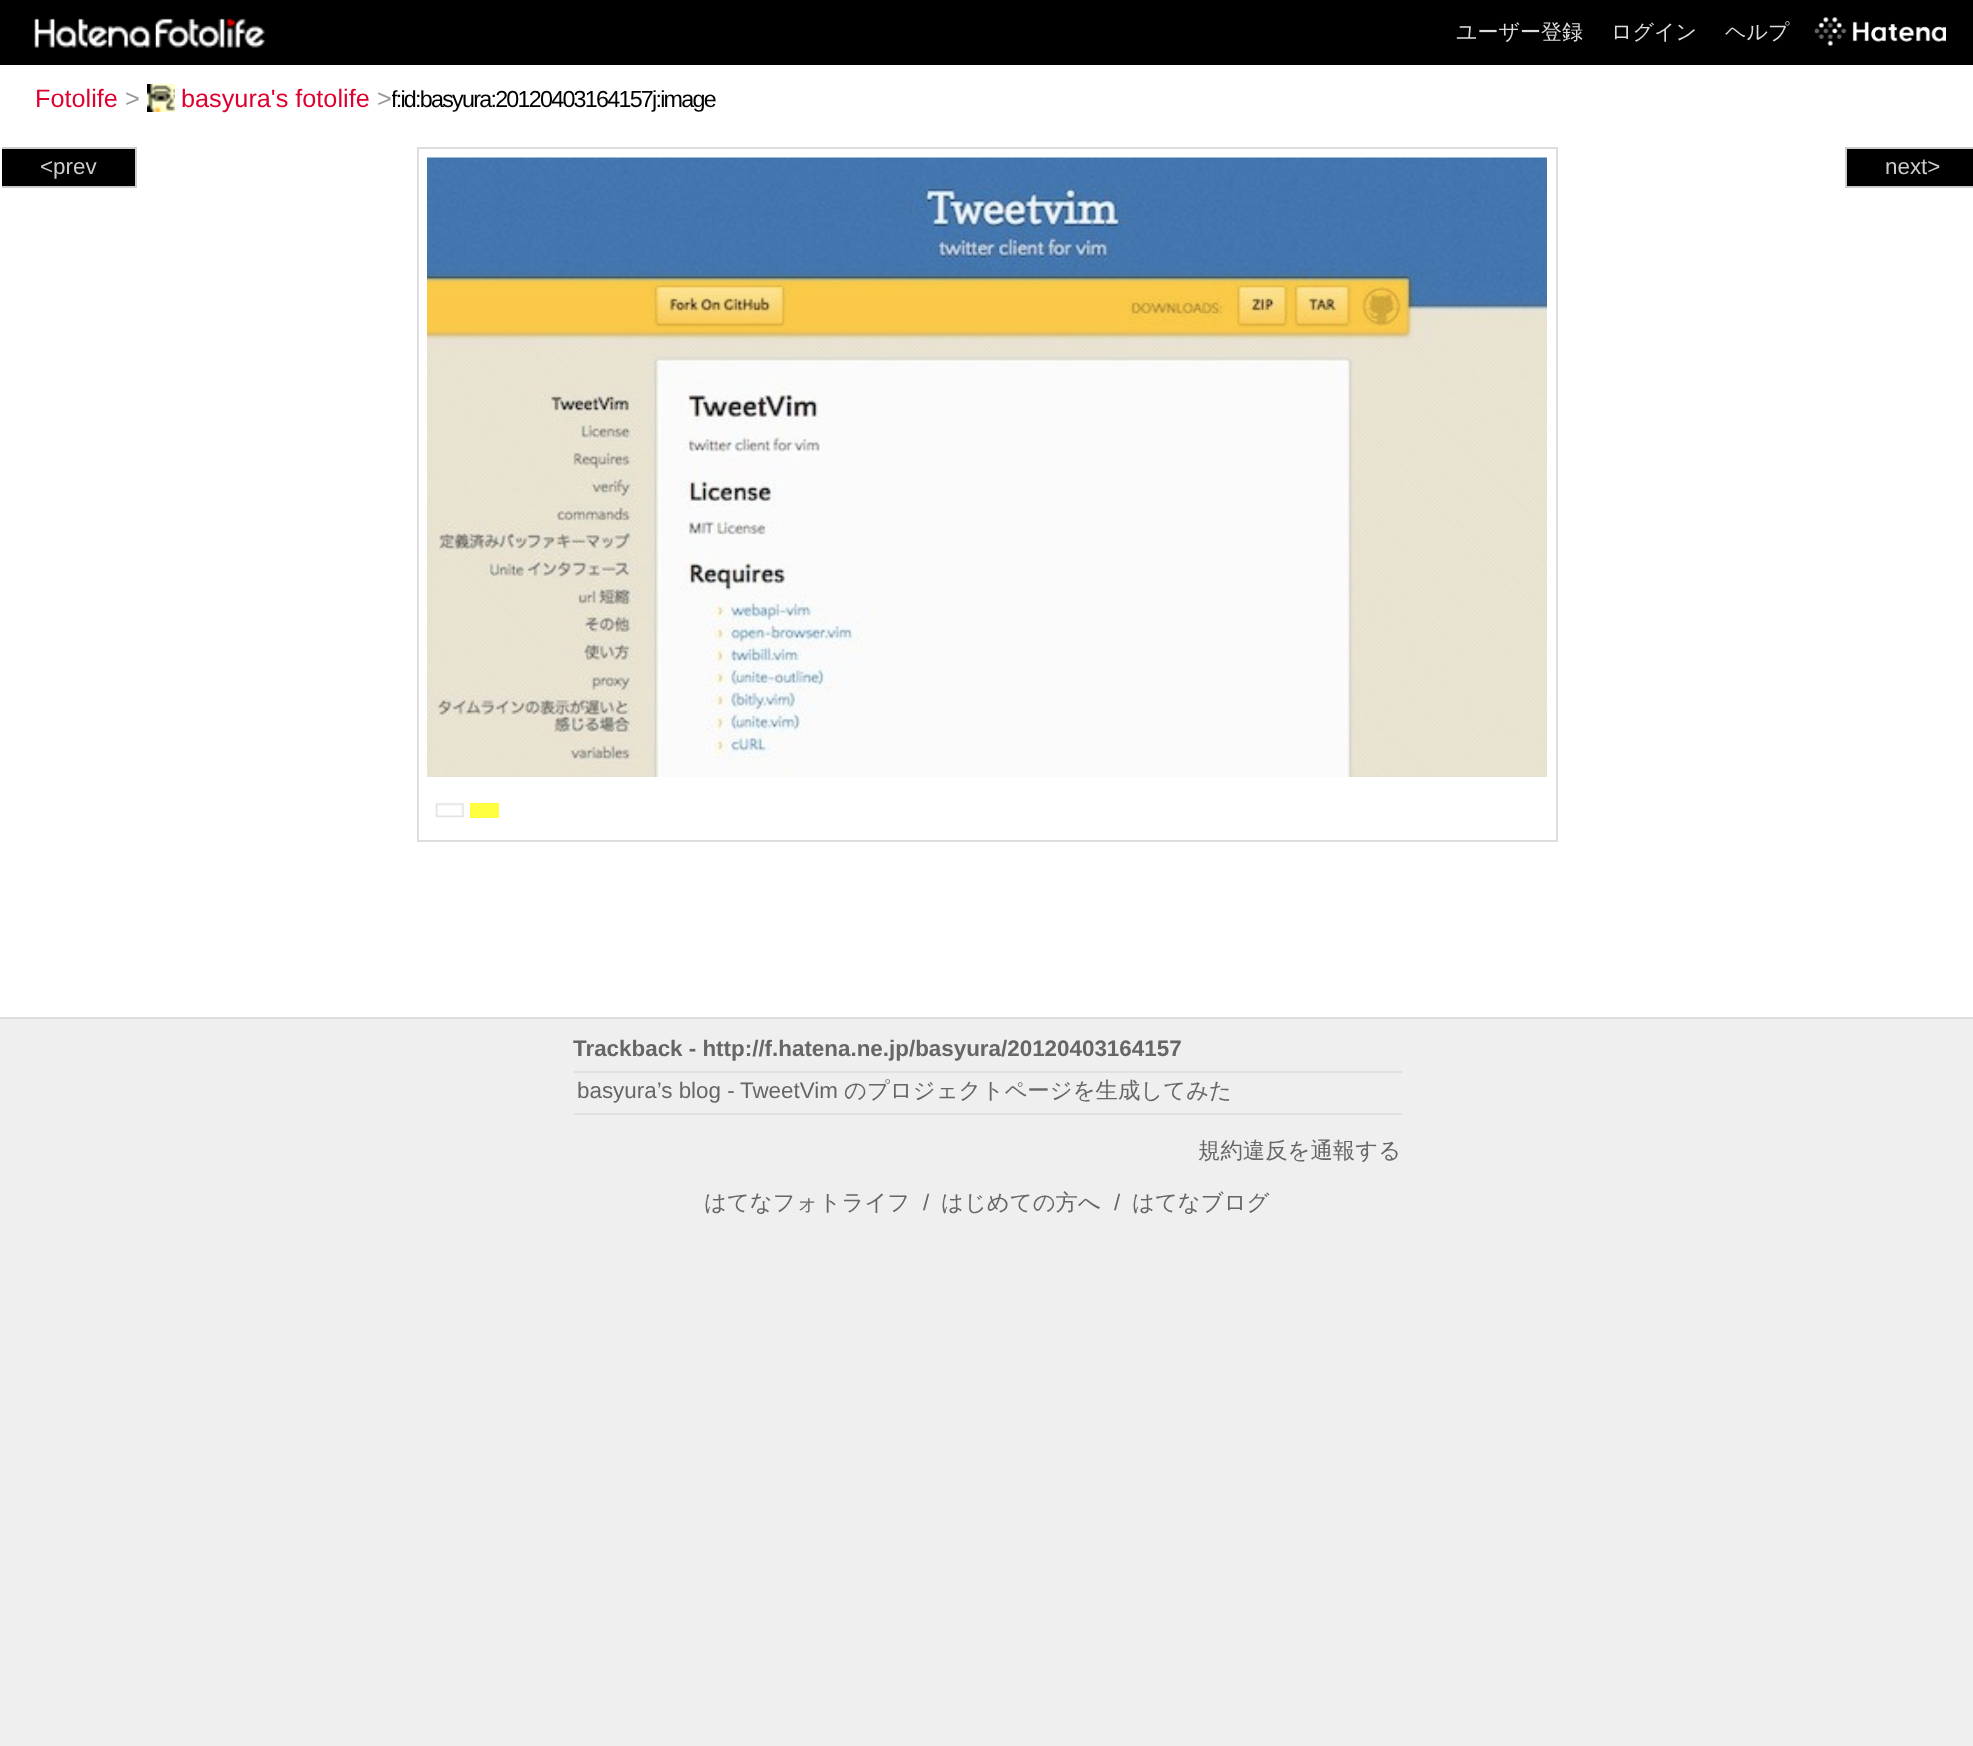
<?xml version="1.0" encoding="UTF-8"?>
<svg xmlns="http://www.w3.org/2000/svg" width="1973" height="1746">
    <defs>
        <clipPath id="clip1"><rect x="392" y="86" width="660" height="26"/></clipPath>
    </defs>
    <rect width="100%" height="100%" fill="#EFEFEF"/>
    <rect x="0" y="0" width="1973" height="65" fill="#000000"/>
    <image x="34" y="18" width="117" height="30" href="img_01.png"/>
    <image x="155" y="18" width="110" height="30" href="img_02.png"/>
    <text x="1456" y="39" font-family="WenQuanYi Zen Hei" font-size="21" font-weight="500" fill="#DDDDDD">ユーザー登録</text>
    <text x="1611" y="39" font-family="WenQuanYi Zen Hei" font-size="21" font-weight="500" fill="#DDDDDD">ログイン</text>
    <text x="1725" y="39" font-family="WenQuanYi Zen Hei" font-size="21" font-weight="500" fill="#DDDDDD">ヘルプ</text>
    <image x="1814" y="17" width="132" height="29" href="img_03.png"/>
    <rect x="0" y="65" width="1973" height="952" fill="#FFFFFF"/>
    <text x="35" y="107" font-family="Liberation Sans" font-size="25.25" fill="#DE002F">Fotolife</text>
    <text x="125" y="107" font-family="Liberation Sans" font-size="25.25" fill="#999999">&gt;</text>
    <image x="147" y="84" width="28" height="28" href="img_04.png"/>
    <text x="181" y="107" font-family="Liberation Sans" font-size="25.25" fill="#DE002F">basyura's fotolife</text>
    <text x="377" y="107" font-family="Liberation Sans" font-size="25.25" fill="#999999">&gt;</text>
    <g clip-path="url(#clip1)">
        <text x="391" y="107" font-family="Liberation Sans" font-size="23.3" letter-spacing="-1.75" fill="#000000">f:id:basyura:20120403164157j:image</text>
    </g>
    <rect x="0" y="1017" width="1973" height="2" fill="#DEDEDE"/>
    <rect x="2" y="149" width="133" height="37" fill="#000000"/>
    <rect x="2" y="147" width="135" height="2" fill="#CCCCCC"/>
    <rect x="135" y="147" width="2" height="40" fill="#CCCCCC"/>
    <rect x="2" y="186" width="135" height="2" fill="#CCCCCC"/>
    <text x="40" y="174" font-family="Liberation Sans" font-size="22.4" fill="#CCCCCC">&lt;prev</text>
    <rect x="418" y="148" width="1139" height="693" fill="none" stroke="#DEDEDE" stroke-width="2"/>
    <image x="427" y="157" width="1120" height="620" href="img_05.png"/>
    <image x="435" y="803" width="29" height="15" href="img_06.png"/>
    <rect x="470" y="803" width="29" height="15" fill="#FFFF40"/>
    <rect x="1847" y="149" width="126" height="37" fill="#000000"/>
    <rect x="1845" y="147" width="128" height="2" fill="#CCCCCC"/>
    <rect x="1845" y="186" width="128" height="2" fill="#CCCCCC"/>
    <rect x="1845" y="147" width="2" height="40" fill="#CCCCCC"/>
    <text x="1885" y="174" font-family="Liberation Sans" font-size="22.4" fill="#CCCCCC">next&gt;</text>
    <text x="573" y="1056" font-family="Liberation Sans" font-size="22.4" font-weight="700" fill="#666666">Trackback - http://f.hatena.ne.jp/basyura/20120403164157</text>
    <rect x="574" y="1071" width="828" height="2" fill="#E1E1E1"/>
    <rect x="574" y="1113" width="828" height="2" fill="#E1E1E1"/>
    <text x="577" y="1098" font-family="Liberation Sans" font-size="22.4" fill="#666666">basyura’s blog -</text>
    <text x="740" y="1098" font-family="Liberation Sans" font-size="22.4" fill="#666666">TweetVim</text>
    <text x="844" y="1098" font-family="WenQuanYi Zen Hei" font-size="22.4" font-weight="500" fill="#666666">のプロジェクトページを生成してみた</text>
    <text x="1198" y="1158" font-family="WenQuanYi Zen Hei" font-size="22.4" font-weight="500" fill="#666666">規約違反を通報する</text>
    <text x="704" y="1210" font-family="WenQuanYi Zen Hei" font-size="22.4" font-weight="500" fill="#666666">はてなフォトライフ</text>
    <text x="923" y="1210" font-family="Liberation Sans" font-size="22.4" fill="#666666">/</text>
    <text x="941" y="1210" font-family="WenQuanYi Zen Hei" font-size="22.4" font-weight="500" fill="#666666">はじめての方へ</text>
    <text x="1114" y="1210" font-family="Liberation Sans" font-size="22.4" fill="#666666">/</text>
    <text x="1132" y="1210" font-family="WenQuanYi Zen Hei" font-size="22.4" font-weight="500" fill="#666666">はてなブログ</text>
</svg>
